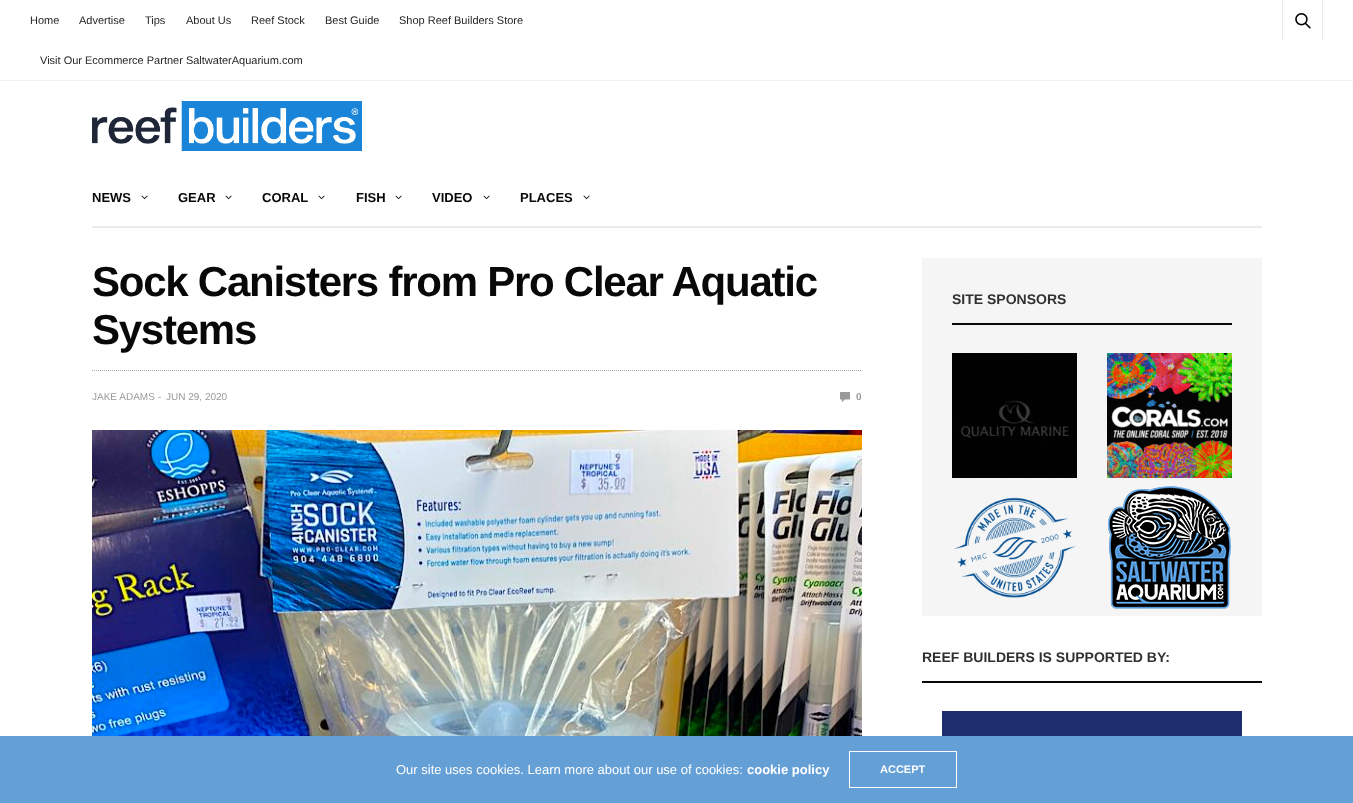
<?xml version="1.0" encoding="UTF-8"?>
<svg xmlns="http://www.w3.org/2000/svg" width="1353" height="803">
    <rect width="100%" height="100%" fill="#FFFFFF"/>
    <rect x="0" y="80" width="1353" height="1" fill="#F2F2F2"/>
    <text x="30" y="24" font-family="Liberation Sans" font-size="11" fill="#262626">Home</text>
    <text x="79" y="24" font-family="Liberation Sans" font-size="11" fill="#262626">Advertise</text>
    <text x="145" y="24" font-family="Liberation Sans" font-size="11" fill="#262626">Tips</text>
    <text x="186" y="24" font-family="Liberation Sans" font-size="11" fill="#262626">About Us</text>
    <text x="251" y="24" font-family="Liberation Sans" font-size="11" fill="#262626">Reef Stock</text>
    <text x="325" y="24" font-family="Liberation Sans" font-size="11" fill="#262626">Best Guide</text>
    <text x="399" y="24" font-family="Liberation Sans" font-size="11" fill="#262626">Shop Reef Builders Store</text>
    <text x="40" y="64" font-family="Liberation Sans" font-size="11" fill="#262626">Visit Our Ecommerce Partner SaltwaterAquarium.com</text>
    <rect x="1322" y="0" width="1" height="40" fill="#EBEBEB"/>
    <rect x="1282" y="0" width="1" height="40" fill="#EBEBEB"/>
    <image x="1295" y="13" width="16" height="16" href="img_01.png"/>
    <image x="92" y="101" width="270" height="50" href="img_02.png"/>
    <rect x="92" y="226" width="1170" height="2" fill="#EBEBEB"/>
    <text x="92" y="202" font-family="Liberation Sans" font-size="13" font-weight="700" fill="#080808">NEWS</text>
    <image x="141" y="195" width="7" height="5" href="img_03.png"/>
    <text x="178" y="202" font-family="Liberation Sans" font-size="13" font-weight="700" fill="#080808">GEAR</text>
    <image x="225" y="195" width="7" height="5" href="img_03.png"/>
    <text x="262" y="202" font-family="Liberation Sans" font-size="13" font-weight="700" fill="#080808">CORAL</text>
    <image x="318" y="195" width="7" height="5" href="img_03.png"/>
    <text x="356" y="202" font-family="Liberation Sans" font-size="13" font-weight="700" fill="#080808">FISH</text>
    <image x="395" y="195" width="7" height="5" href="img_03.png"/>
    <text x="432" y="202" font-family="Liberation Sans" font-size="13" font-weight="700" fill="#080808">VIDEO</text>
    <image x="483" y="195" width="7" height="5" href="img_03.png"/>
    <text x="520" y="202" font-family="Liberation Sans" font-size="13" font-weight="700" fill="#080808">PLACES</text>
    <image x="583" y="195" width="7" height="5" href="img_03.png"/>
    <path d="M 92 370.5 H 862" fill="none" stroke="#A8A8A8" stroke-dasharray="1 1"/>
    <text font-family="Liberation Sans" font-size="42" font-weight="700" letter-spacing="-1.25" fill="#080808">
        <tspan x="92" y="296">Sock Canisters from Pro Clear Aquatic</tspan>
        <tspan x="92" y="344">Systems</tspan>
    </text>
    <text x="92" y="400" font-family="Liberation Sans" font-size="10" fill="#999999">JAKE ADAMS</text>
    <text x="158" y="400" font-family="Liberation Sans" font-size="10" fill="#999999">-</text>
    <text x="166" y="400" font-family="Liberation Sans" font-size="10" fill="#999999">JUN 29, 2020</text>
    <image x="840" y="392" width="10" height="10" href="img_04.png"/>
    <text x="856" y="400" font-family="Liberation Sans" font-size="10" font-weight="700" fill="#999999">0</text>
    <image x="92" y="430" width="770" height="306" href="img_05.png"/>
    <rect x="922" y="258" width="340" height="358" fill="#F5F5F5"/>
    <rect x="952" y="323" width="280" height="2" fill="#080808"/>
    <text x="952" y="304" font-family="Liberation Sans" font-size="14" font-weight="700" fill="#313131">SITE SPONSORS</text>
    <image x="952" y="353" width="125" height="125" href="img_06.png"/>
    <image x="1107" y="353" width="125" height="125" href="img_07.png"/>
    <image x="953" y="497" width="123" height="101" href="img_08.png"/>
    <image x="1108" y="486" width="123" height="123" href="img_09.png"/>
    <rect x="922" y="681" width="340" height="2" fill="#080808"/>
    <text x="922" y="662" font-family="Liberation Sans" font-size="14" font-weight="700" fill="#313131">REEF BUILDERS IS SUPPORTED BY:</text>
    <image x="942" y="711" width="300" height="25" href="img_10.png"/>
    <rect x="0" y="736" width="1353" height="67" fill="#649FD6"/>
    <text x="396" y="774" font-family="Liberation Sans" font-size="13" fill="#FFFFFF">Our site uses cookies. Learn more about our use of cookies:</text>
    <text x="747" y="774" font-family="Liberation Sans" font-size="13" font-weight="700" fill="#FFFFFF">cookie policy</text>
    <rect x="849.5" y="751.5" width="107" height="36" fill="none" stroke="#FFFFFF"/>
    <text x="880" y="773" font-family="Liberation Sans" font-size="11" font-weight="700" fill="#FFFFFF">ACCEPT</text>
</svg>
